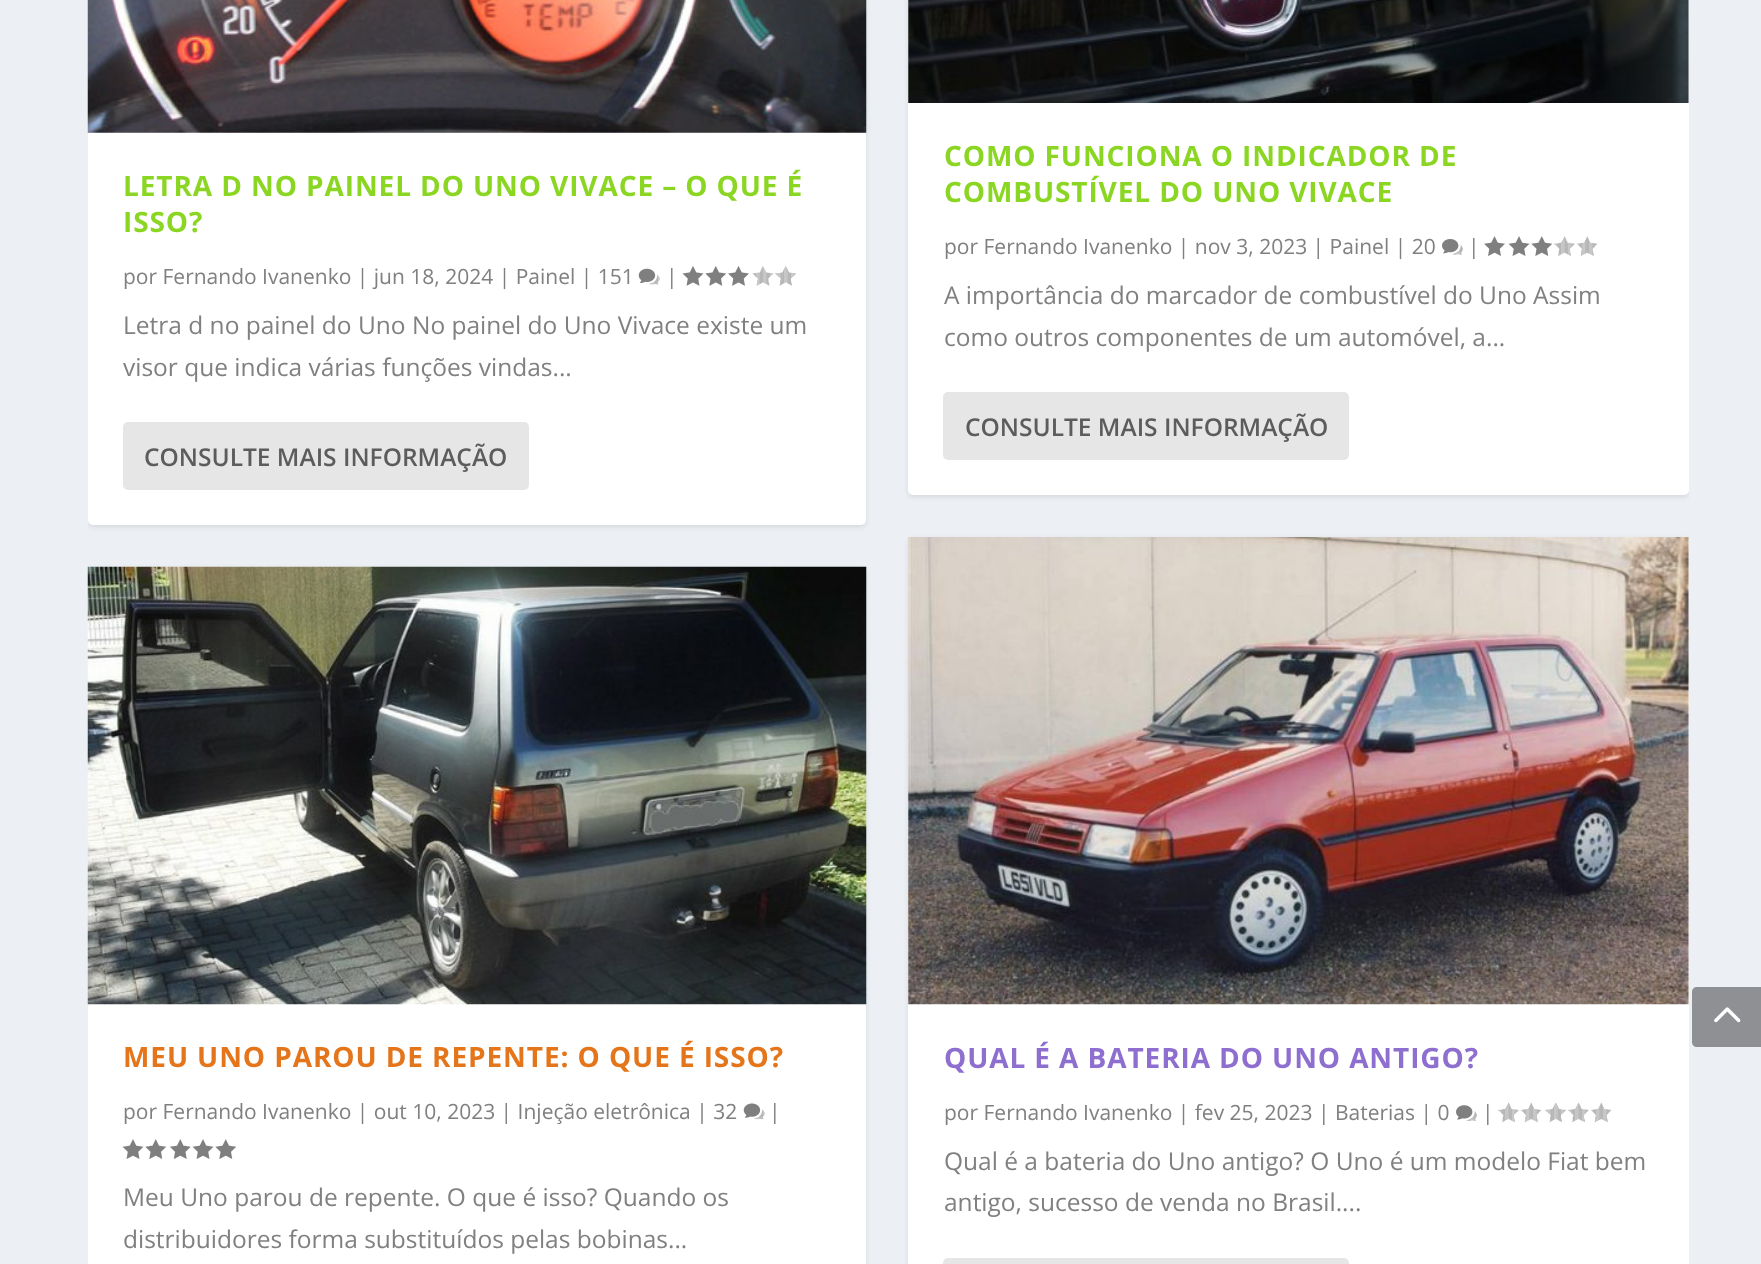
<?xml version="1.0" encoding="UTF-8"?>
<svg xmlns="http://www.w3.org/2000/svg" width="1761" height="1264">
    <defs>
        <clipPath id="clip1"><rect x="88" y="-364" width="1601" height="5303" rx="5"/></clipPath>
        <filter id="blur1" x="-50%" y="-200%" width="200%" height="500%"><feGaussianBlur stdDeviation="2.5"/></filter>
    </defs>
    <rect width="100%" height="100%" fill="#ECF0F5"/>
    <g clip-path="url(#clip1)">
        <rect x="88" y="-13" width="778" height="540" rx="5" fill="#000000" fill-opacity="0.1" filter="url(#blur1)"/>
    </g>
    <rect x="88" y="-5" width="778" height="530" rx="5" fill="#FFFFFF"/>
    <image x="87" y="0" width="780" height="133" href="img_01.png"/>
    <text font-family="Open Sans" font-size="28" font-weight="700" letter-spacing="0.9" fill="#8BD623">
        <tspan x="123" y="196">LETRA D NO PAINEL DO UNO VIVACE – O QUE É</tspan>
        <tspan x="123" y="232">ISSO?</tspan>
    </text>
    <text x="123" y="284" font-family="Open Sans" font-size="21" fill="#808080">por Fernando Ivanenko | jun 18, 2024 | Painel | 151</text>
    <image x="638" y="268" width="22" height="17" href="img_02.png"/>
    <text x="666" y="284" font-family="Open Sans" font-size="21" fill="#808080">|</text>
    <image x="682" y="266" width="22" height="20" href="img_03.png"/>
    <image x="705" y="266" width="21" height="20" href="img_04.png"/>
    <image x="728" y="266" width="21" height="20" href="img_05.png"/>
    <image x="752" y="266" width="22" height="20" href="img_06.png"/>
    <image x="775" y="266" width="21" height="20" href="img_07.png"/>
    <text font-family="Open Sans" font-size="24.5" fill="#808080">
        <tspan x="123" y="334">Letra d no painel do Uno No painel do Uno Vivace existe um</tspan>
        <tspan x="123" y="376">visor que indica várias funções vindas...</tspan>
    </text>
    <rect x="123" y="422" width="406" height="68" rx="5" fill="#E6E6E6"/>
    <text x="144" y="466" font-family="Open Sans" font-size="24.5" font-weight="600" fill="#5C5C5C">CONSULTE MAIS INFORMAÇÃO</text>
    <g clip-path="url(#clip1)">
        <rect x="88" y="569" width="778" height="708" rx="5" fill="#000000" fill-opacity="0.1" filter="url(#blur1)"/>
    </g>
    <rect x="88" y="1004" width="778" height="260" fill="#FFFFFF"/>
    <image x="87" y="566" width="780" height="439" href="img_08.png"/>
    <text x="123" y="1067" font-family="Open Sans" font-size="28" font-weight="700" letter-spacing="0.9" fill="#E4751B">MEU UNO PAROU DE REPENTE: O QUE É ISSO?</text>
    <text x="123" y="1119" font-family="Open Sans" font-size="21" fill="#808080">por Fernando Ivanenko | out 10, 2023 | Injeção eletrônica | 32</text>
    <image x="743" y="1103" width="22" height="17" href="img_09.png"/>
    <text x="769" y="1119" font-family="Open Sans" font-size="21" fill="#808080">|</text>
    <image x="122" y="1139" width="22" height="20" href="img_10.png"/>
    <image x="145" y="1139" width="21" height="20" href="img_11.png"/>
    <image x="170" y="1139" width="21" height="20" href="img_12.png"/>
    <image x="192" y="1139" width="22" height="20" href="img_10.png"/>
    <image x="215" y="1139" width="21" height="20" href="img_11.png"/>
    <text font-family="Open Sans" font-size="24.5" fill="#808080">
        <tspan x="123" y="1206">Meu Uno parou de repente. O que é isso? Quando os</tspan>
        <tspan x="123" y="1248">distribuidores forma substituídos pelas bobinas...</tspan>
    </text>
    <g clip-path="url(#clip1)">
        <rect x="908" y="-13" width="781" height="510" rx="5" fill="#000000" fill-opacity="0.1" filter="url(#blur1)"/>
    </g>
    <rect x="908" y="-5" width="781" height="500" rx="5" fill="#FFFFFF"/>
    <image x="908" y="0" width="781" height="103" href="img_13.png"/>
    <text font-family="Open Sans" font-size="28" font-weight="700" letter-spacing="0.9" fill="#8BD623">
        <tspan x="944" y="166">COMO FUNCIONA O INDICADOR DE</tspan>
        <tspan x="944" y="202">COMBUSTÍVEL DO UNO VIVACE</tspan>
    </text>
    <text x="944" y="254" font-family="Open Sans" font-size="21" fill="#808080">por Fernando Ivanenko | nov 3, 2023 | Painel | 20</text>
    <image x="1442" y="239" width="21" height="16" href="img_14.png"/>
    <text x="1468" y="254" font-family="Open Sans" font-size="21" fill="#808080">|</text>
    <image x="1484" y="236" width="21" height="20" href="img_15.png"/>
    <image x="1508" y="236" width="22" height="20" href="img_10.png"/>
    <image x="1531" y="236" width="21" height="20" href="img_11.png"/>
    <image x="1554" y="236" width="21" height="20" href="img_16.png"/>
    <image x="1577" y="236" width="21" height="20" href="img_17.png"/>
    <text font-family="Open Sans" font-size="24.5" fill="#808080">
        <tspan x="944" y="304">A importância do marcador de combustível do Uno Assim</tspan>
        <tspan x="944" y="346">como outros componentes de um automóvel, a...</tspan>
    </text>
    <rect x="943" y="392" width="406" height="68" rx="5" fill="#E6E6E6"/>
    <text x="965" y="436" font-family="Open Sans" font-size="24.5" font-weight="600" fill="#5C5C5C">CONSULTE MAIS INFORMAÇÃO</text>
    <g clip-path="url(#clip1)">
        <rect x="908" y="539" width="781" height="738" rx="5" fill="#000000" fill-opacity="0.1" filter="url(#blur1)"/>
    </g>
    <rect x="908" y="537" width="781" height="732" rx="5" fill="#FFFFFF"/>
    <image x="908" y="537" width="781" height="468" href="img_18.png"/>
    <text x="944" y="1068" font-family="Open Sans" font-size="28" font-weight="700" letter-spacing="0.9" fill="#8E6ECF">QUAL É A BATERIA DO UNO ANTIGO?</text>
    <text x="944" y="1120" font-family="Open Sans" font-size="21" fill="#808080">por Fernando Ivanenko | fev 25, 2023 | Baterias | 0</text>
    <image x="1456" y="1105" width="21" height="16" href="img_19.png"/>
    <text x="1482" y="1120" font-family="Open Sans" font-size="21" fill="#808080">|</text>
    <image x="1498" y="1102" width="21" height="21" href="img_20.png"/>
    <image x="1521" y="1102" width="21" height="21" href="img_21.png"/>
    <image x="1545" y="1102" width="21" height="21" href="img_22.png"/>
    <image x="1568" y="1102" width="21" height="21" href="img_20.png"/>
    <image x="1591" y="1102" width="21" height="21" href="img_21.png"/>
    <text font-family="Open Sans" font-size="24.5" fill="#808080">
        <tspan x="944" y="1170">Qual é a bateria do Uno antigo? O Uno é um modelo Fiat bem</tspan>
        <tspan x="944" y="1211">antigo, sucesso de venda no Brasil....</tspan>
    </text>
    <rect x="943" y="1258" width="406" height="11" rx="5" fill="#E6E6E6"/>
    <path d="M 1697 987 H 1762 V 1047 H 1697 C 1694 1047 1692 1045 1692 1042 V 992 C 1692 989 1694 987 1697 987 Z" fill="#8E9093"/>
    <image x="1714" y="1007" width="27" height="16" href="img_23.png"/>
</svg>
